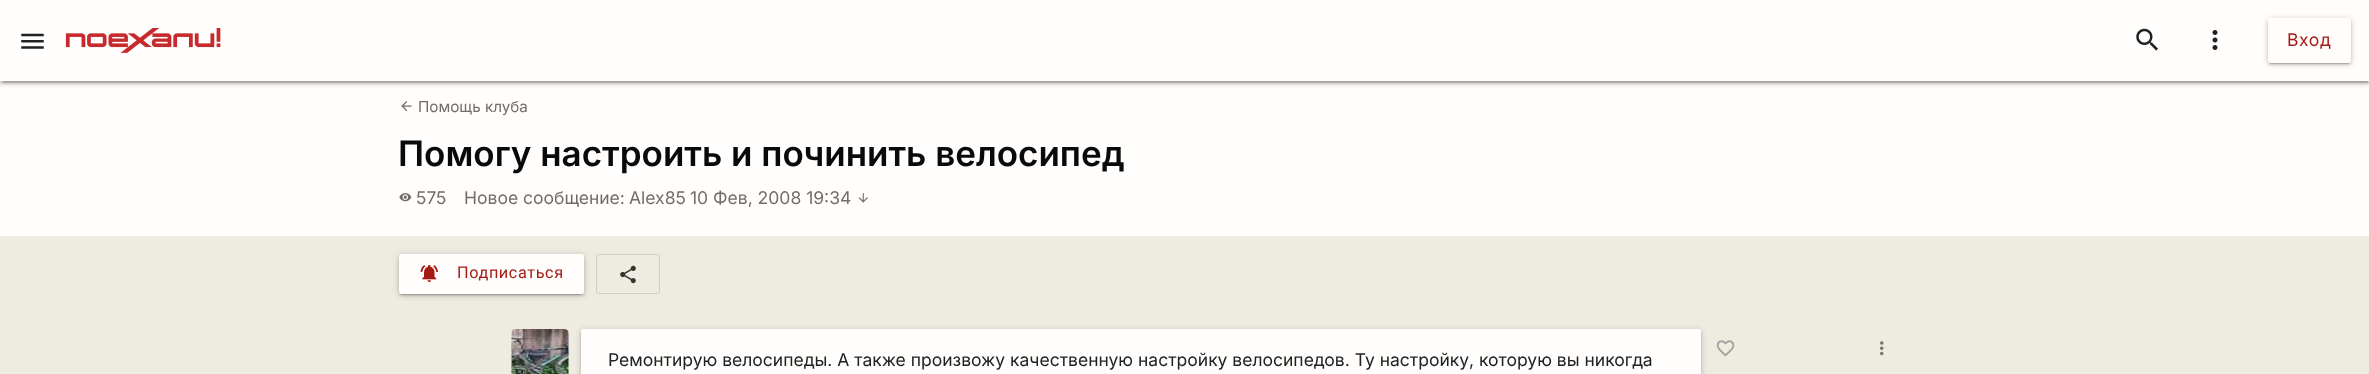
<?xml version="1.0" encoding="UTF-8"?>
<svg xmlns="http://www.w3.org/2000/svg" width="2369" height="374">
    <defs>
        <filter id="blur1" x="-50%" y="-200%" width="200%" height="500%"><feGaussianBlur stdDeviation="3"/></filter>
        <filter id="blur2" x="-50%" y="-200%" width="200%" height="500%"><feGaussianBlur stdDeviation="0.5"/></filter>
        <filter id="blur3" x="-50%" y="-200%" width="200%" height="500%"><feGaussianBlur stdDeviation="1"/></filter>
    </defs>
    <rect width="100%" height="100%" fill="#EEEBE1"/>
    <rect x="0" y="81" width="2369" height="155" fill="#FFFEFC"/>
    <rect x="0" y="1" width="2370" height="82" fill="#000000" fill-opacity="0.2" filter="url(#blur1)"/>
    <rect x="3" y="6" width="2365" height="77" fill="#000000" fill-opacity="0.12" filter="url(#blur2)"/>
    <rect x="0" y="3" width="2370" height="81" fill="#000000" fill-opacity="0.14" filter="url(#blur3)"/>
    <rect x="0" y="0" width="2369" height="81" fill="#FFFEFC"/>
    <image x="21" y="33" width="23" height="16" href="img_01.png"/>
    <image x="65" y="28" width="156" height="25" href="img_02.png"/>
    <image x="2136" y="28" width="22" height="23" href="img_03.png"/>
    <image x="2212" y="30" width="6" height="20" href="img_04.png"/>
    <rect x="2268" y="19" width="83" height="45" rx="2.5" fill="#000000" fill-opacity="0.2" filter="url(#blur1)"/>
    <rect x="2270" y="24" width="79" height="40" fill="#000000" fill-opacity="0.12" filter="url(#blur2)"/>
    <rect x="2268" y="20" width="83" height="45" rx="2.5" fill="#000000" fill-opacity="0.14" filter="url(#blur3)"/>
    <rect x="2268" y="18" width="83" height="45" rx="2.5" fill="#FFFEFC"/>
    <text x="2287" y="46" font-family="Inter" font-size="17.5" letter-spacing="0.6" fill="#A61A14">Вход</text>
    <image x="401" y="101" width="11" height="11" href="img_05.png"/>
    <text x="418" y="112" font-family="Inter" font-size="15.25" fill="#706E6B">Помощь клуба</text>
    <text x="398" y="166" font-family="Inter" font-size="35" font-weight="600" fill="#0A0A0A">Помогу настроить и починить велосипед</text>
    <image x="399" y="193" width="13" height="9" href="img_06.png"/>
    <text x="416" y="204" font-family="Inter" font-size="17.5" fill="#706E6B">575</text>
    <text x="464" y="204" font-family="Inter" font-size="17.5" fill="#706E6B">Новое сообщение:</text>
    <text x="629" y="204" font-family="Inter" font-size="17.5" fill="#706E6B">Alex85</text>
    <text x="690" y="204" font-family="Inter" font-size="17.5" fill="#706E6B">10 Фев, 2008 19:34</text>
    <image x="858" y="193" width="10" height="10" href="img_07.png"/>
    <rect x="399" y="255" width="185" height="40" rx="2.5" fill="#000000" fill-opacity="0.2" filter="url(#blur1)"/>
    <rect x="401" y="260" width="180" height="35" fill="#000000" fill-opacity="0.12" filter="url(#blur2)"/>
    <rect x="399" y="256" width="185" height="40" rx="2.5" fill="#000000" fill-opacity="0.14" filter="url(#blur3)"/>
    <rect x="399" y="254" width="185" height="40" rx="2.5" fill="#FFFEFC"/>
    <image x="420" y="264" width="18" height="18" href="img_08.png"/>
    <text x="457" y="278" font-family="Roboto" font-size="16.25" letter-spacing="0.6" fill="#A61A14">Подписаться</text>
    <rect x="596.5" y="254.5" width="63" height="39" rx="2" fill="none" stroke="#D2CDBC"/>
    <image x="620" y="265" width="16" height="19" href="img_09.png"/>
    <rect x="511" y="329" width="58" height="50" rx="5" fill="#FFFEFC"/>
    <image x="511" y="329" width="58" height="45" href="img_10.png"/>
    <image x="1716" y="340" width="19" height="17" href="img_11.png"/>
    <image x="1880" y="341" width="4" height="15" href="img_12.png"/>
    <rect x="581" y="330" width="1120" height="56" rx="2.5" fill="#000000" fill-opacity="0.2" filter="url(#blur1)"/>
    <rect x="581" y="331" width="1120" height="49" rx="2.5" fill="#000000" fill-opacity="0.14" filter="url(#blur3)"/>
    <rect x="581" y="329" width="1120" height="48" rx="2.5" fill="#FFFEFC"/>
    <text x="608" y="366" font-family="Inter" font-size="17.5" fill="#212121">Ремонтирую велосипеды. А также произвожу качественную настройку велосипедов. Ту настройку, которую вы никогда</text>
</svg>
